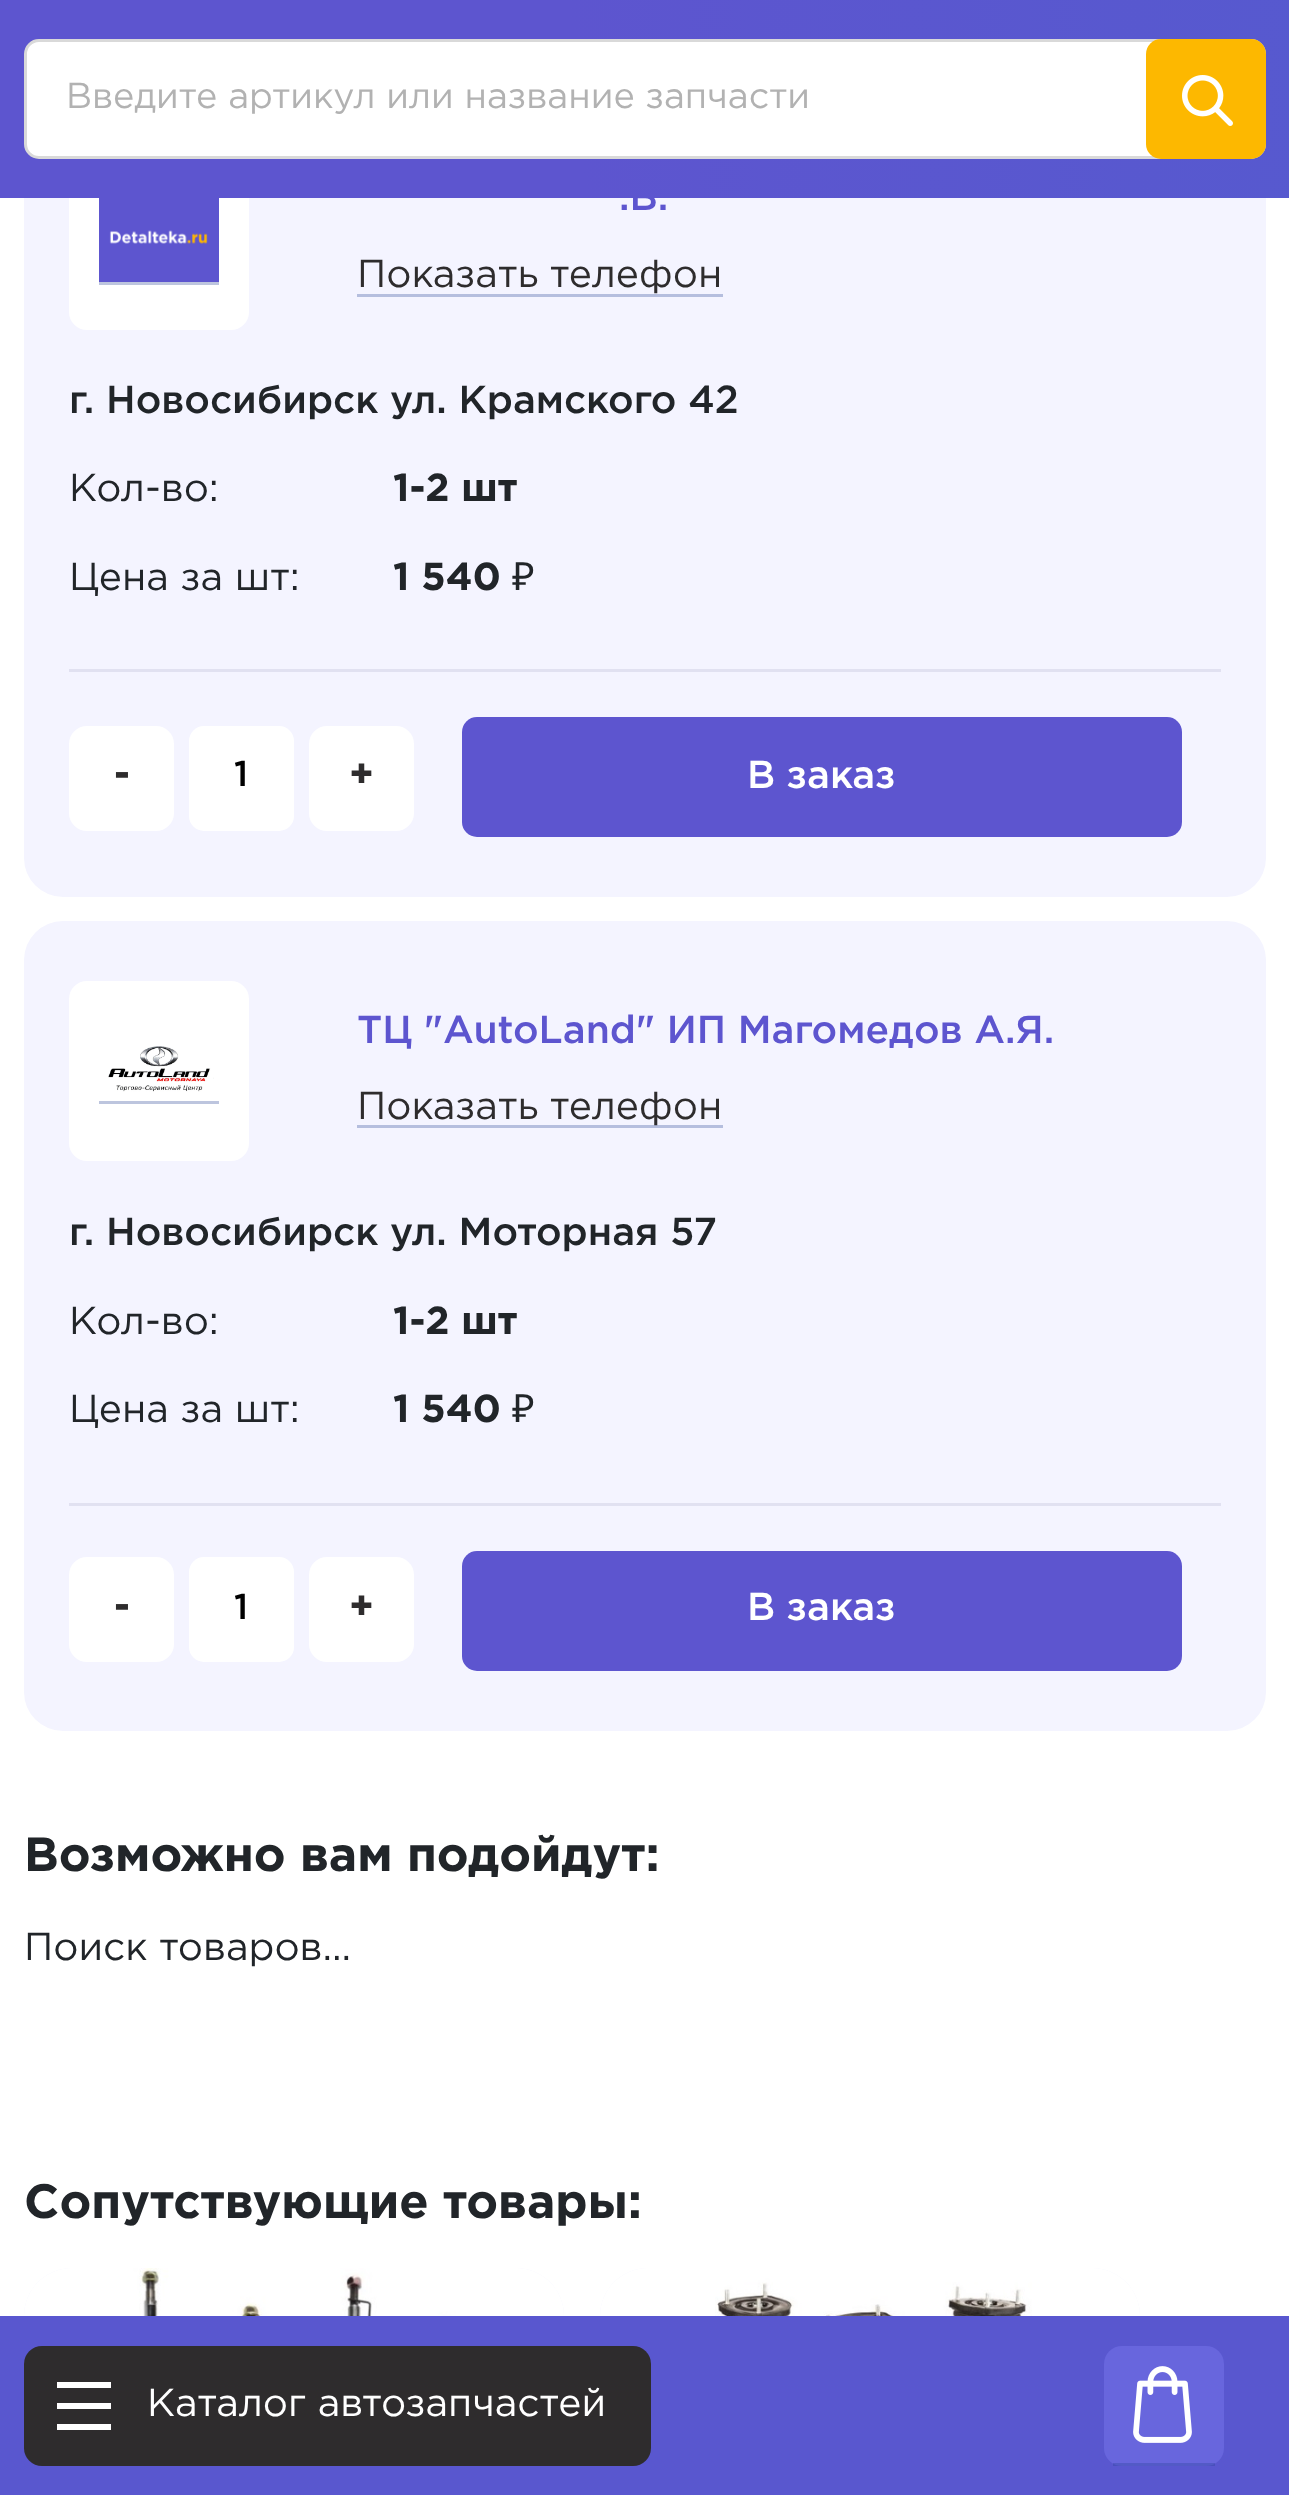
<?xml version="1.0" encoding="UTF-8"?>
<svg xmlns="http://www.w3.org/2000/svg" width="1289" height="2495">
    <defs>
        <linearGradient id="g1" gradientUnits="userSpaceOnUse" x1="-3.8" y1="147" x2="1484" y2="36"><stop offset="0.39" stop-color="#5D55CF"/><stop offset="1" stop-color="#555ACF"/></linearGradient>
    </defs>
    <rect width="100%" height="100%" fill="#FFFFFF"/>
    <rect x="24" y="90" width="1242" height="807" rx="39" fill="#F4F4FF"/>
    <rect x="69" y="150" width="180" height="180" rx="18" fill="#FFFFFF"/>
    <text x="619" y="210" font-family="Gotham" font-size="39" font-weight="500" fill="#5D55CF">.В.</text>
    <rect x="0" y="0" width="1289" height="198" fill="url(#g1)"/>
    <rect x="25.5" y="40.5" width="1239" height="117" rx="13.5" fill="#FFFFFF" stroke="#D9D9D9" stroke-width="3"/>
    <text x="66" y="108" font-family="Gotham" font-size="36" fill="#B2B2B2">Введите артикул или название запчасти</text>
    <rect x="1146" y="39" width="120" height="120" rx="15" fill="#FDB800"/>
    <image x="1182" y="75" width="51" height="51" href="img_01.png"/>
    <rect x="99" y="282" width="120" height="3" fill="#BDC5DE"/>
    <image x="99" y="198" width="120" height="84" href="img_02.png"/>
    <text x="357" y="287" font-family="Gotham" font-size="39" fill="#2E2C2D">Показать телефон</text>
    <rect x="357" y="294" width="366" height="3" fill="#B5BEDE"/>
    <text x="69" y="413" font-family="Gotham" font-size="39" font-weight="500" fill="#212529">г. Новосибирск ул. Крамского 42</text>
    <text x="69" y="501" font-family="Gotham" font-size="39" fill="#212529">Кол-во:</text>
    <text x="393" y="501" font-family="Gotham" font-size="39" font-weight="700" fill="#212529">1-2 шт</text>
    <text x="69" y="590" font-family="Gotham" font-size="39" fill="#212529">Цена за шт:</text>
    <text x="393" y="590" font-family="Gotham" font-size="39" font-weight="700" fill="#212529">1 540</text>
    <text x="512" y="590" font-family="Noto Sans" font-size="39" fill="#212529">₽</text>
    <rect x="69" y="669" width="1152" height="3" fill="#E1E1F1"/>
    <rect x="69" y="726" width="105" height="105" rx="18" fill="#FFFFFF"/>
    <text x="114" y="787" font-family="Gotham" font-size="39" font-weight="700" fill="#2E2C2D">-</text>
    <rect x="189" y="726" width="105" height="105" rx="15" fill="#FFFFFF"/>
    <text x="234" y="786" font-family="Gotham" font-size="36" font-weight="500" fill="#000000">1</text>
    <rect x="309" y="726" width="105" height="105" rx="18" fill="#FFFFFF"/>
    <text x="349" y="787" font-family="Gotham" font-size="39" font-weight="700" fill="#2E2C2D">+</text>
    <rect x="462" y="717" width="720" height="120" rx="15" fill="#5D55CF"/>
    <text x="747" y="788" font-family="Gotham" font-size="39" font-weight="500" fill="#FFFFFF">В заказ</text>
    <rect x="24" y="921" width="1242" height="810" rx="39" fill="#F4F4FF"/>
    <rect x="69" y="981" width="180" height="180" rx="18" fill="#FFFFFF"/>
    <rect x="99" y="1101" width="120" height="3" fill="#BDC5DE"/>
    <image x="108" y="1046" width="106" height="46" href="img_03.png"/>
    <text x="357" y="1043" font-family="Gotham" font-size="39" font-weight="500" fill="#5D55CF">ТЦ "AutoLand" ИП Магомедов А.Я.</text>
    <rect x="357" y="1125" width="366" height="3" fill="#B5BEDE"/>
    <text x="357" y="1119" font-family="Gotham" font-size="39" fill="#2E2C2D">Показать телефон</text>
    <text x="69" y="1245" font-family="Gotham" font-size="39" font-weight="500" fill="#212529">г. Новосибирск ул. Моторная 57</text>
    <text x="69" y="1334" font-family="Gotham" font-size="39" fill="#212529">Кол-во:</text>
    <text x="393" y="1334" font-family="Gotham" font-size="39" font-weight="700" fill="#212529">1-2 шт</text>
    <text x="69" y="1422" font-family="Gotham" font-size="39" fill="#212529">Цена за шт:</text>
    <text x="393" y="1422" font-family="Gotham" font-size="39" font-weight="700" fill="#212529">1 540</text>
    <text x="512" y="1422" font-family="Noto Sans" font-size="39" fill="#212529">₽</text>
    <rect x="69" y="1503" width="1152" height="3" fill="#E1E1F1"/>
    <rect x="69" y="1557" width="105" height="105" rx="18" fill="#FFFFFF"/>
    <text x="114" y="1619" font-family="Gotham" font-size="39" font-weight="700" fill="#2E2C2D">-</text>
    <rect x="189" y="1557" width="105" height="105" rx="15" fill="#FFFFFF"/>
    <text x="234" y="1619" font-family="Gotham" font-size="36" font-weight="500" fill="#000000">1</text>
    <rect x="309" y="1557" width="105" height="105" rx="18" fill="#FFFFFF"/>
    <text x="349" y="1619" font-family="Gotham" font-size="39" font-weight="700" fill="#2E2C2D">+</text>
    <rect x="462" y="1551" width="720" height="120" rx="15" fill="#5D55CF"/>
    <text x="747" y="1620" font-family="Gotham" font-size="39" font-weight="500" fill="#FFFFFF">В заказ</text>
    <text x="24" y="1871" font-family="Gotham" font-size="48" font-weight="700" fill="#212529">Возможно вам подойдут:</text>
    <text x="24" y="1960" font-family="Gotham" font-size="39" fill="#212529">Поиск товаров...</text>
    <text x="24" y="2218" font-family="Gotham" font-size="48" font-weight="700" fill="#212529">Сопутствующие товары:</text>
    <rect x="24" y="2268" width="540" height="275" rx="48" fill="#F4F4FF"/>
    <image x="24" y="2268" width="540" height="48" href="img_04.png"/>
    <rect x="600" y="2268" width="540" height="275" rx="48" fill="#F4F4FF"/>
    <image x="600" y="2268" width="540" height="48" href="img_05.png"/>
    <image x="1176" y="2268" width="108" height="48" href="img_06.png"/>
    <rect x="0" y="2316" width="1289" height="179" fill="#5957CF"/>
    <rect x="24" y="2346" width="627" height="120" rx="18" fill="#2E2C2D"/>
    <rect x="57" y="2403" width="54" height="6" fill="#FFFFFF"/>
    <rect x="57" y="2382" width="54" height="6" fill="#FFFFFF"/>
    <rect x="57" y="2424" width="54" height="6" fill="#FFFFFF"/>
    <text x="147" y="2416" font-family="Gotham" font-size="39" fill="#FFFFFF">Каталог автозапчастей</text>
    <rect x="1104" y="2346" width="120" height="120" rx="18" fill="#6866DD"/>
    <rect x="1113" y="2463" width="102" height="3" fill="#233F92" fill-opacity="0.3"/>
    <image x="1133" y="2366" width="59" height="77" href="img_07.png"/>
</svg>
